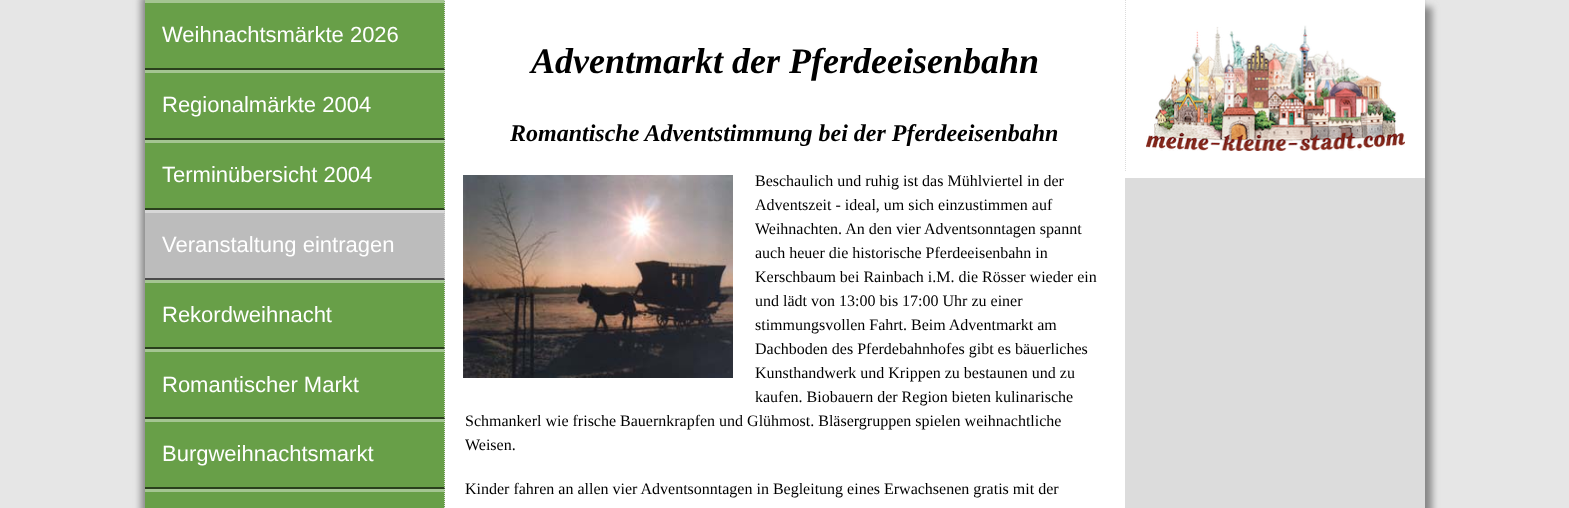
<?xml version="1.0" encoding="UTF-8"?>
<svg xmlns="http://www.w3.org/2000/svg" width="1569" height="508">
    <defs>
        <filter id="blur1" x="-50%" y="-200%" width="200%" height="500%"><feGaussianBlur stdDeviation="3.5"/></filter>
    </defs>
    <rect width="100%" height="100%" fill="#E6E6E6"/>
    <rect x="141" y="-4" width="1280" height="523" fill="#888888" filter="url(#blur1)"/>
    <rect x="152" y="7" width="1280" height="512" fill="#888888" filter="url(#blur1)"/>
    <rect x="445" y="0" width="680" height="508" fill="#FFFFFF"/>
    <rect x="145" y="1" width="300" height="507" fill="#689F48"/>
    <path d="M 145 0 H 445 L 444 3 H 145 Z" fill="#A4C591"/>
    <path d="M 444.5 0 V 70" fill="none" stroke="#DCDCDC" stroke-dasharray="1 1"/>
    <path d="M 445 70 H 145 V 68 H 444 Z" fill="#2A401D"/>
    <text x="162" y="42" font-family="Liberation Sans" font-size="22" fill="#FFFFFF">Weihnachtsmärkte 2026</text>
    <path d="M 145 70 H 445 L 444 73 H 145 Z" fill="#A4C591"/>
    <path d="M 444.5 70 V 140" fill="none" stroke="#DCDCDC" stroke-dasharray="1 1"/>
    <path d="M 445 140 H 145 V 138 H 444 Z" fill="#2A401D"/>
    <text x="162" y="112" font-family="Liberation Sans" font-size="22" fill="#FFFFFF">Regionalmärkte 2004</text>
    <path d="M 145 140 H 445 L 444 143 H 145 Z" fill="#A4C591"/>
    <path d="M 444.5 140 V 210" fill="none" stroke="#DCDCDC" stroke-dasharray="1 1"/>
    <path d="M 445 210 H 145 V 208 H 444 Z" fill="#2A401D"/>
    <text x="162" y="182" font-family="Liberation Sans" font-size="22" fill="#FFFFFF">Terminübersicht 2004</text>
    <rect x="145" y="211" width="300" height="69" fill="#BCBCBC"/>
    <path d="M 145 210 H 445 L 444 213 H 145 Z" fill="#D7D7D7"/>
    <path d="M 444.5 210 V 280" fill="none" stroke="#DCDCDC" stroke-dasharray="1 1"/>
    <path d="M 445 280 H 145 V 278 H 444 Z" fill="#4B4B4B"/>
    <text x="162" y="252" font-family="Liberation Sans" font-size="22" fill="#FFFFFF">Veranstaltung eintragen</text>
    <path d="M 145 280 H 445 L 444 283 H 145 Z" fill="#A4C591"/>
    <path d="M 444.5 280 V 349" fill="none" stroke="#DCDCDC" stroke-dasharray="1 1"/>
    <path d="M 445 349 H 145 V 347 H 444 Z" fill="#000000" fill-opacity="0.6"/>
    <text x="162" y="322" font-family="Liberation Sans" font-size="22" fill="#FFFFFF">Rekordweihnacht</text>
    <path d="M 145 349 H 445 L 444 352 H 145 Z" fill="#A4C591"/>
    <path d="M 444.5 349 V 419" fill="none" stroke="#DCDCDC" stroke-dasharray="1 1"/>
    <path d="M 445 419 H 145 V 417 H 444 Z" fill="#2A401D"/>
    <text x="162" y="392" font-family="Liberation Sans" font-size="22" fill="#FFFFFF">Romantischer Markt</text>
    <path d="M 145 419 H 445 L 444 422 H 145 Z" fill="#A4C591"/>
    <path d="M 444.5 419 V 489" fill="none" stroke="#DCDCDC" stroke-dasharray="1 1"/>
    <path d="M 445 489 H 145 V 487 H 444 Z" fill="#2A401D"/>
    <text x="162" y="461" font-family="Liberation Sans" font-size="22" fill="#FFFFFF">Burgweihnachtsmarkt</text>
    <path d="M 145 489 H 445 L 444 492 H 145 Z" fill="#A4C591"/>
    <path d="M 444.5 489 V 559" fill="none" stroke="#DCDCDC" stroke-dasharray="1 1"/>
    <text x="531" y="73" font-family="Liberation Serif" font-size="36" font-weight="700" font-style="italic" fill="#000000">Adventmarkt der Pferdeeisenbahn</text>
    <text x="510" y="141" font-family="Liberation Serif" font-size="24" font-weight="700" font-style="italic" fill="#000000">Romantische Adventstimmung bei der Pferdeeisenbahn</text>
    <text font-family="Liberation Serif" font-size="16" fill="#000000">
        <tspan x="755" y="186">Beschaulich und ruhig ist das Mühlviertel in der</tspan>
        <tspan x="755" y="210">Adventszeit - ideal, um sich einzustimmen auf</tspan>
        <tspan x="755" y="234">Weihnachten. An den vier Adventsonntagen spannt</tspan>
        <tspan x="755" y="258">auch heuer die historische Pferdeeisenbahn in</tspan>
        <tspan x="755" y="282">Kerschbaum bei Rainbach i.M. die Rösser wieder ein</tspan>
        <tspan x="755" y="306">und lädt von 13:00 bis 17:00 Uhr zu einer</tspan>
        <tspan x="755" y="330">stimmungsvollen Fahrt. Beim Adventmarkt am</tspan>
        <tspan x="755" y="354">Dachboden des Pferdebahnhofes gibt es bäuerliches</tspan>
        <tspan x="755" y="378">Kunsthandwerk und Krippen zu bestaunen und zu</tspan>
        <tspan x="755" y="402">kaufen. Biobauern der Region bieten kulinarische</tspan>
    </text>
    <text font-family="Liberation Serif" font-size="16" fill="#000000">
        <tspan x="465" y="426">Schmankerl wie frische Bauernkrapfen und Glühmost. Bläsergruppen spielen weihnachtliche</tspan>
        <tspan x="465" y="450">Weisen.</tspan>
    </text>
    <image x="463" y="175" width="270" height="203" href="img_01.png"/>
    <text x="465" y="494" font-family="Liberation Serif" font-size="16" fill="#000000">Kinder fahren an allen vier Adventsonntagen in Begleitung eines Erwachsenen gratis mit der</text>
    <rect x="1125" y="178" width="300" height="330" fill="#DCDCDC"/>
    <rect x="1125" y="0" width="300" height="178" fill="#FFFFFF"/>
    <path d="M 1125.5 0 V 171" fill="none" stroke="#DCDCDC" stroke-dasharray="1 1"/>
    <image x="1146" y="25" width="259" height="126" href="img_02.png"/>
</svg>
